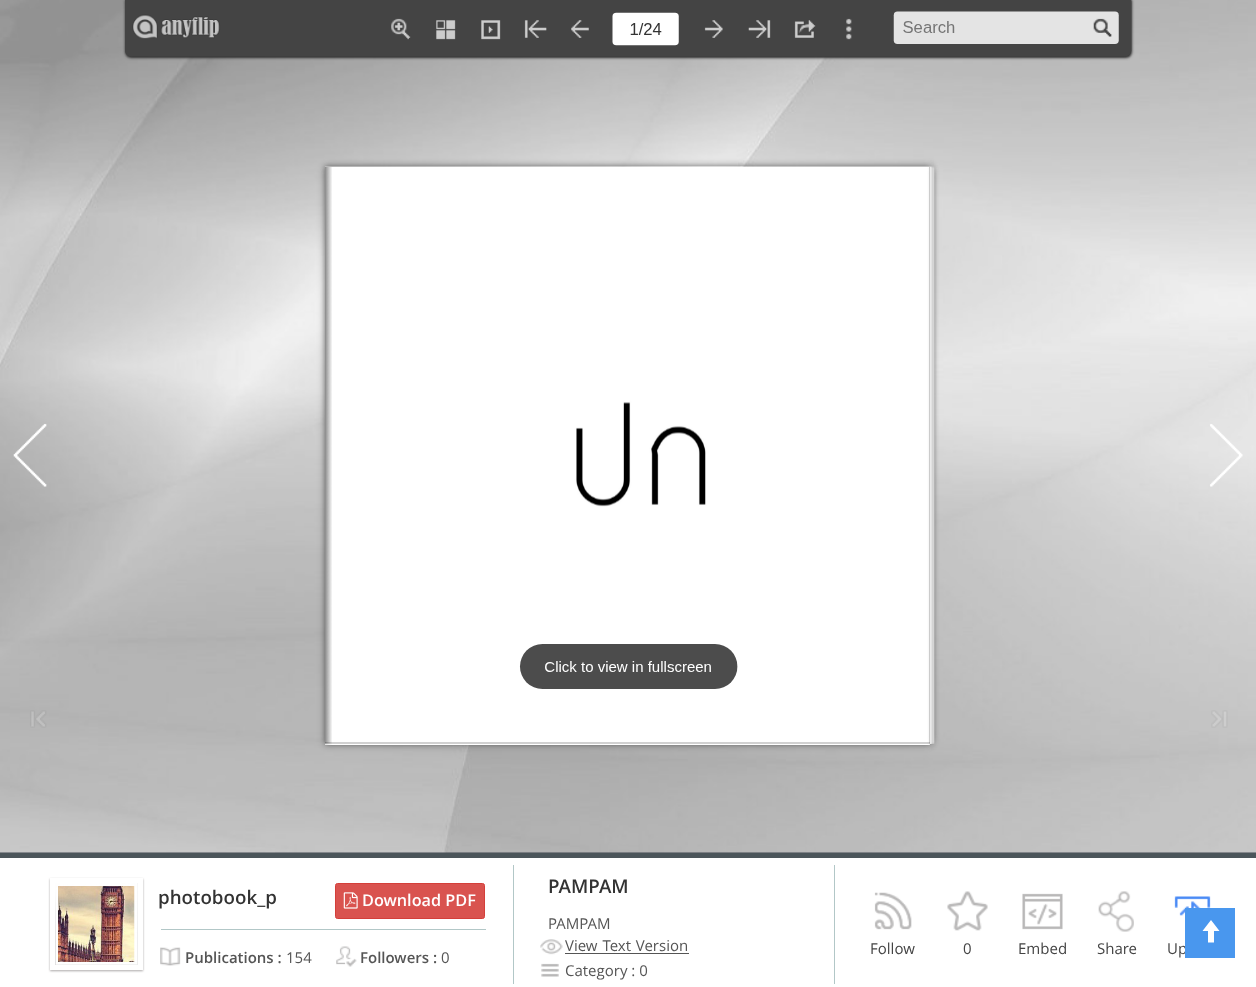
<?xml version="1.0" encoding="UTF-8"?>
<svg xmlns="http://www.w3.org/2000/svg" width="1256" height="987">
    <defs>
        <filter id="blur1" x="-50%" y="-200%" width="200%" height="500%"><feGaussianBlur stdDeviation="1"/></filter>
    </defs>
    <rect width="100%" height="100%" fill="#FFFFFF"/>
    <rect x="0" y="852" width="1256" height="6" fill="#4B555A"/>
    <image x="0" y="0" width="1256" height="853" href="img_01.png"/>
    <rect x="50" y="879" width="93" height="92" fill="#ABA7A7" filter="url(#blur1)"/>
    <rect x="137" y="883" width="1" height="82" fill="#F5F5F5"/>
    <rect x="52.5" y="880.5" width="88" height="87" fill="none" stroke="#FFFFFF" stroke-width="5"/>
    <image x="55" y="883" width="83" height="82" href="img_02.png"/>
    <text x="158" y="904" font-family="Open Sans" font-size="18.75" font-weight="600" fill="#333333">photobook_p</text>
    <rect x="335.5" y="883.5" width="149" height="35" rx="2" fill="#D9534F" stroke="#D43F3A"/>
    <image x="343" y="892" width="15" height="17" href="img_03.png"/>
    <text x="362" y="906" font-family="Open Sans" font-size="16.25" font-weight="600" fill="#FFFFFF">Download PDF</text>
    <rect x="161" y="929" width="325" height="1" fill="#B2C7C7"/>
    <image x="160" y="947" width="21" height="19" href="img_04.png"/>
    <text x="185" y="963" font-family="Open Sans" font-size="15" font-weight="600" fill="#555555">Publications :</text>
    <text x="286" y="963" font-family="Open Sans" font-size="15" fill="#555555">154</text>
    <image x="336" y="946" width="21" height="21" href="img_05.png"/>
    <text x="360" y="963" font-family="Open Sans" font-size="15" font-weight="600" fill="#555555">Followers :</text>
    <text x="441" y="963" font-family="Open Sans" font-size="15" fill="#555555">0</text>
    <rect x="513" y="865" width="1" height="119" fill="#B2C7C7"/>
    <text x="548" y="893" font-family="Open Sans" font-size="18.75" font-weight="600" fill="#333333">PAMPAM</text>
    <text x="548" y="929" font-family="Open Sans" font-size="15" fill="#555555">PAMPAM</text>
    <image x="540" y="939" width="23" height="16" href="img_06.png"/>
    <text x="565" y="951" word-spacing="1" font-family="Open Sans" font-size="15" fill="#555555">View Text Version</text>
    <rect x="565" y="953" width="124" height="1" fill="#555555"/>
    <image x="541" y="963" width="18" height="14" href="img_07.png"/>
    <text x="565" y="976" font-family="Open Sans" font-size="15" fill="#555555">Category : 0</text>
    <rect x="834" y="865" width="1" height="119" fill="#B2C7C7"/>
    <image x="874" y="892" width="38" height="38" href="img_08.png"/>
    <text x="870" y="954" font-family="Open Sans" font-size="15" fill="#444444">Follow</text>
    <image x="947" y="891" width="41" height="40" href="img_09.png"/>
    <text x="963" y="954" font-family="Open Sans" font-size="15" fill="#444444">0</text>
    <image x="1022" y="893" width="41" height="37" href="img_10.png"/>
    <text x="1018" y="954" font-family="Open Sans" font-size="15" fill="#444444">Embed</text>
    <image x="1098" y="891" width="36" height="41" href="img_11.png"/>
    <text x="1097" y="954" font-family="Open Sans" font-size="15" fill="#444444">Share</text>
    <image x="1174" y="896" width="37" height="20" href="img_12.png"/>
    <text x="1167" y="954" font-family="Open Sans" font-size="15" fill="#444444">Up</text>
    <rect x="1185" y="908" width="50" height="50" fill="#4997EE"/>
    <path d="M 1202.5 931 L 1211 920 L 1219.5 931 H 1214 V 942.5 H 1208 V 931 Z" fill="#FFFFFF"/>
</svg>
